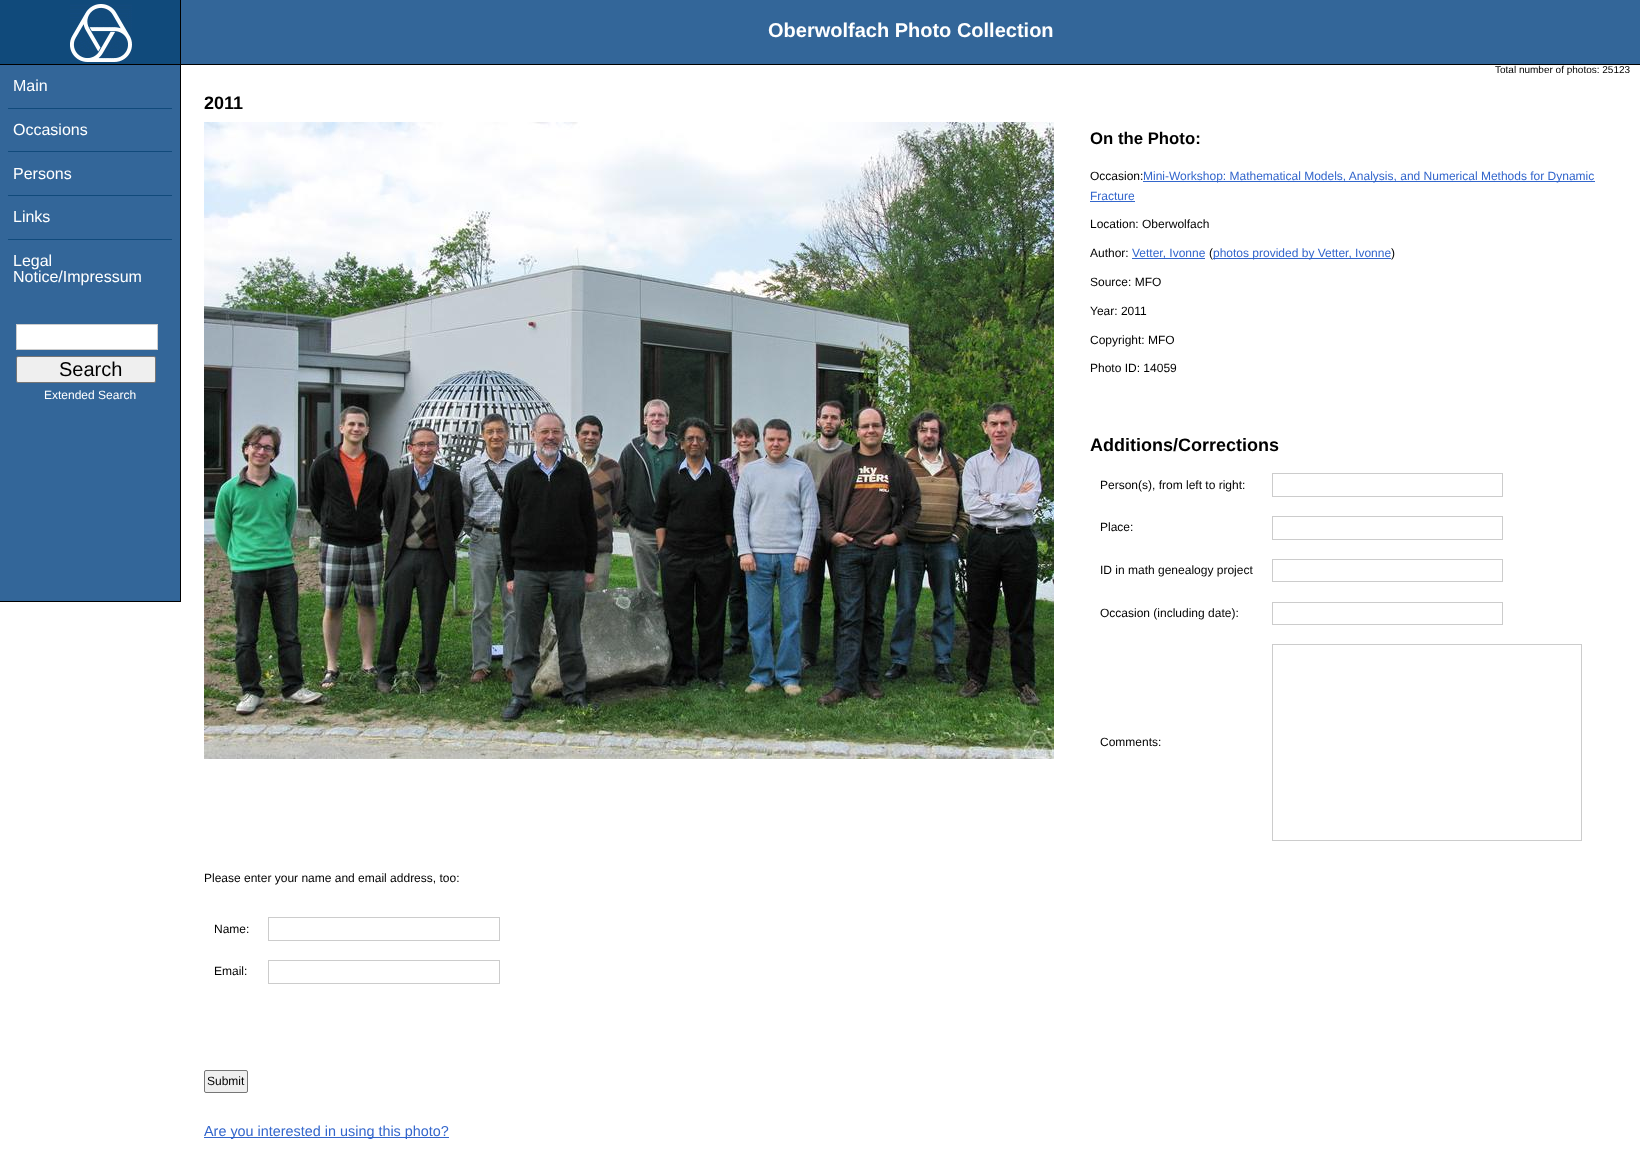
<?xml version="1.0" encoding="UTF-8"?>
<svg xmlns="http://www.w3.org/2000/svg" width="1640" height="1172">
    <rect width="100%" height="100%" fill="#FFFFFF"/>
    <rect x="181" y="0" width="1459" height="64" fill="#336699"/>
    <rect x="0" y="64" width="1640" height="1" fill="#000000"/>
    <rect x="0" y="0" width="180" height="64" fill="#104A7B"/>
    <rect x="180" y="0" width="1" height="64" fill="#000000"/>
    <image x="70" y="4" width="62" height="58" href="img_01.png"/>
    <text x="768" y="37" font-family="Liberation Sans" font-size="20" font-weight="700" fill="#FFFFFF">Oberwolfach Photo Collection</text>
    <text x="1495" y="73" font-family="Liberation Sans" font-size="10" fill="#000000">Total number of photos: 25123</text>
    <rect x="0" y="65" width="180" height="536" fill="#336699"/>
    <rect x="180" y="65" width="1" height="537" fill="#000000"/>
    <rect x="0" y="601" width="181" height="1" fill="#000000"/>
    <text x="13" y="91" font-family="Liberation Sans" font-size="16" fill="#FFFFFF">Main</text>
    <rect x="8" y="108" width="164" height="1" fill="#104A7B"/>
    <text x="13" y="135" font-family="Liberation Sans" font-size="16" fill="#FFFFFF">Occasions</text>
    <rect x="8" y="151" width="164" height="1" fill="#104A7B"/>
    <text x="13" y="179" font-family="Liberation Sans" font-size="16" fill="#FFFFFF">Persons</text>
    <rect x="8" y="195" width="164" height="1" fill="#104A7B"/>
    <text x="13" y="222" font-family="Liberation Sans" font-size="16" fill="#FFFFFF">Links</text>
    <rect x="8" y="239" width="164" height="1" fill="#104A7B"/>
    <text font-family="Liberation Sans" font-size="16" fill="#FFFFFF">
        <tspan x="13" y="266">Legal</tspan>
        <tspan x="13" y="282">Notice/Impressum</tspan>
    </text>
    <rect x="16.5" y="324.5" width="141" height="25" fill="#FFFFFF" stroke="#CCCCCC"/>
    <rect x="16.5" y="356.5" width="139" height="26" rx="1.5" fill="#EFEFEF" stroke="#767676"/>
    <text x="59" y="376" font-family="Liberation Sans" font-size="20" fill="#000000">Search</text>
    <text x="44" y="399" font-family="Liberation Sans" font-size="12" fill="#FFFFFF">Extended Search</text>
    <text x="204" y="109" font-family="Liberation Sans" font-size="18" font-weight="700" fill="#000000">2011</text>
    <image x="204" y="122" width="850" height="637" href="img_02.png"/>
    <text x="1090" y="144" font-family="Liberation Sans" font-size="16.75" font-weight="700" fill="#000000">On the Photo:</text>
    <text x="1090" y="180" font-family="Liberation Sans" font-size="12" fill="#000000">Occasion:</text>
    <rect x="1143" y="181" width="452" height="1" fill="#3366CC"/>
    <text x="1143" y="180" font-family="Liberation Sans" font-size="12" fill="#3366CC">Mini-Workshop: Mathematical Models, Analysis, and Numerical Methods for Dynamic</text>
    <text x="1090" y="200" font-family="Liberation Sans" font-size="12" fill="#3366CC">Fracture</text>
    <rect x="1090" y="201" width="45" height="1" fill="#3366CC"/>
    <text x="1090" y="228" font-family="Liberation Sans" font-size="12" fill="#000000">Location: Oberwolfach</text>
    <text x="1090" y="257" font-family="Liberation Sans" font-size="12" fill="#000000">Author:</text>
    <rect x="1132" y="258" width="73" height="1" fill="#3366CC"/>
    <text x="1132" y="257" font-family="Liberation Sans" font-size="12" fill="#3366CC">Vetter, Ivonne</text>
    <text x="1209" y="257" font-family="Liberation Sans" font-size="12" fill="#000000">(</text>
    <rect x="1213" y="258" width="178" height="1" fill="#3366CC"/>
    <text x="1213" y="257" font-family="Liberation Sans" font-size="12" fill="#3366CC">photos provided by Vetter, Ivonne</text>
    <text x="1391" y="257" font-family="Liberation Sans" font-size="12" fill="#000000">)</text>
    <text x="1090" y="286" font-family="Liberation Sans" font-size="12" fill="#000000">Source: MFO</text>
    <text x="1090" y="315" font-family="Liberation Sans" font-size="12" fill="#000000">Year: 2011</text>
    <text x="1090" y="344" font-family="Liberation Sans" font-size="12" fill="#000000">Copyright: MFO</text>
    <text x="1090" y="372" font-family="Liberation Sans" font-size="12" fill="#000000">Photo ID: 14059</text>
    <text x="1090" y="451" font-family="Liberation Sans" font-size="18" font-weight="700" fill="#000000">Additions/Corrections</text>
    <text x="1100" y="489" font-family="Liberation Sans" font-size="12" fill="#000000">Person(s), from left to right:</text>
    <rect x="1272.5" y="473.5" width="230" height="23" fill="none" stroke="#CCCCCC"/>
    <text x="1100" y="531" font-family="Liberation Sans" font-size="12" fill="#000000">Place:</text>
    <rect x="1272.5" y="516.5" width="230" height="23" fill="none" stroke="#CCCCCC"/>
    <text x="1100" y="574" font-family="Liberation Sans" font-size="12" fill="#000000">ID in math genealogy project</text>
    <rect x="1272.5" y="559.5" width="230" height="22" fill="none" stroke="#CCCCCC"/>
    <text x="1100" y="617" font-family="Liberation Sans" font-size="12" fill="#000000">Occasion (including date):</text>
    <rect x="1272.5" y="602.5" width="230" height="22" fill="none" stroke="#CCCCCC"/>
    <text x="1100" y="746" font-family="Liberation Sans" font-size="12" fill="#000000">Comments:</text>
    <rect x="1272.5" y="644.5" width="309" height="196" fill="none" stroke="#CCCCCC"/>
    <text x="204" y="882" font-family="Liberation Sans" font-size="12" fill="#000000">Please enter your name and email address, too:</text>
    <text x="214" y="933" font-family="Liberation Sans" font-size="12" fill="#000000">Name:</text>
    <rect x="268.5" y="917.5" width="231" height="23" fill="none" stroke="#CCCCCC"/>
    <text x="214" y="975" font-family="Liberation Sans" font-size="12" fill="#000000">Email:</text>
    <rect x="268.5" y="960.5" width="231" height="23" fill="none" stroke="#CCCCCC"/>
    <rect x="204.5" y="1070.5" width="43" height="22" rx="1.5" fill="#EFEFEF" stroke="#767676"/>
    <text x="207" y="1085" font-family="Liberation Sans" font-size="12" fill="#000000">Submit</text>
    <rect x="204" y="1137" width="245" height="1" fill="#3366CC"/>
    <text x="204" y="1136" font-family="Liberation Sans" font-size="14.4" fill="#3366CC">Are you interested in using this photo?</text>
</svg>
